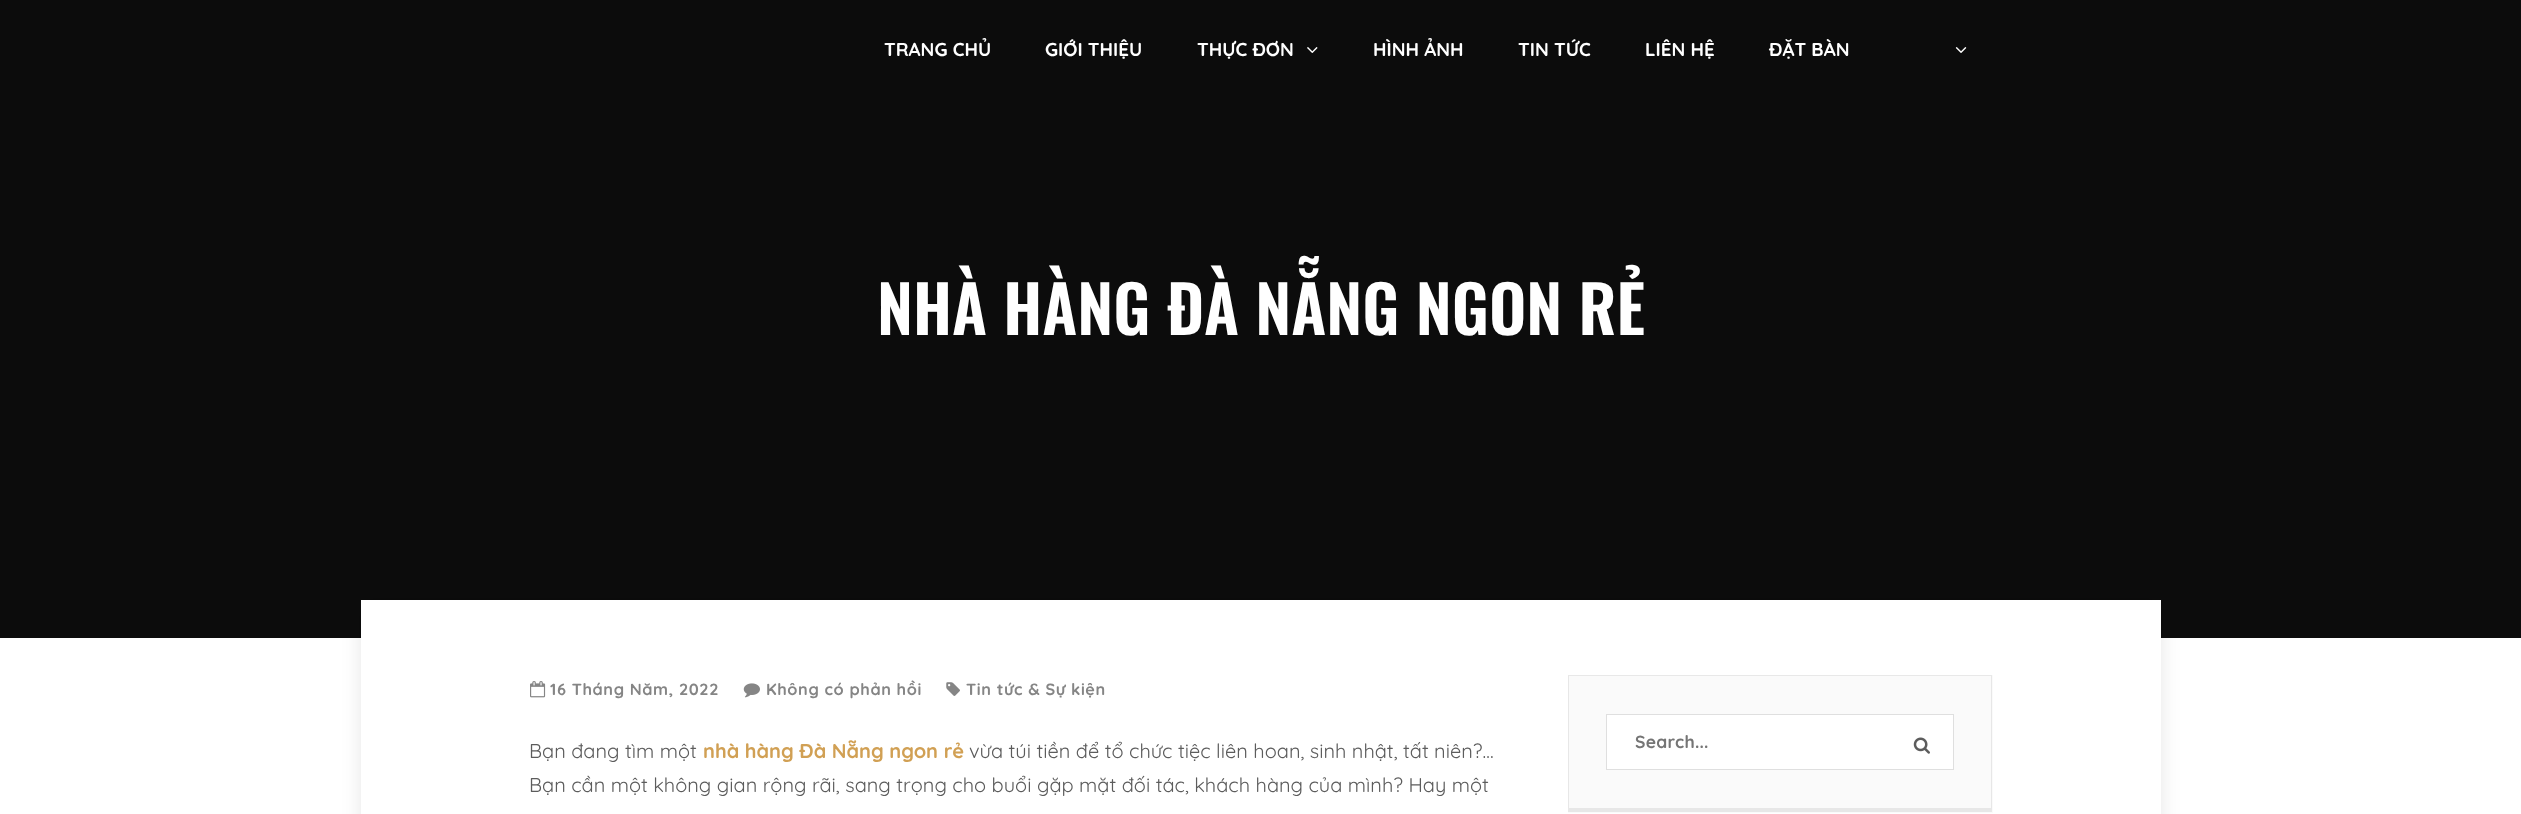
<?xml version="1.0" encoding="UTF-8"?>
<svg xmlns="http://www.w3.org/2000/svg" width="2521" height="814">
    <defs>
        <filter id="blur1" x="-50%" y="-200%" width="200%" height="500%"><feGaussianBlur stdDeviation="9.5"/></filter>
    </defs>
    <rect width="100%" height="100%" fill="#FFFFFF"/>
    <rect x="0" y="0" width="2521" height="638" fill="#0C0C0C"/>
    <text x="884" y="56" font-family="Quicksand" font-size="18.75" font-weight="700" fill="#FFFFFF">TRANG CHỦ</text>
    <text x="1045" y="56" font-family="Quicksand" font-size="18.75" font-weight="700" fill="#FFFFFF">GIỚI THIỆU</text>
    <text x="1197" y="56" font-family="Quicksand" font-size="18.75" font-weight="700" fill="#FFFFFF">THỰC ĐƠN</text>
    <image x="1307" y="47" width="11" height="6" href="img_01.png"/>
    <text x="1373" y="56" font-family="Quicksand" font-size="18.75" font-weight="700" fill="#FFFFFF">HÌNH ẢNH</text>
    <text x="1518" y="56" font-family="Quicksand" font-size="18.75" font-weight="700" fill="#FFFFFF">TIN TỨC</text>
    <text x="1645" y="56" font-family="Quicksand" font-size="18.75" font-weight="700" fill="#FFFFFF">LIÊN HỆ</text>
    <text x="1769" y="56" font-family="Quicksand" font-size="18.75" font-weight="700" fill="#FFFFFF">ĐẶT BÀN</text>
    <image x="1955" y="47" width="12" height="6" href="img_02.png"/>
    <text x="877" y="335" font-family="Oswald" font-size="65" font-weight="600" fill="#FFFFFF">NHÀ HÀNG ĐÀ NẴNG NGON RẺ</text>
    <rect x="361" y="600" width="1800" height="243" fill="#000000" fill-opacity="0.1" filter="url(#blur1)"/>
    <rect x="361" y="600" width="1800" height="214" fill="#FFFFFF"/>
    <image x="530" y="681" width="16" height="17" href="img_03.png"/>
    <text x="550" y="695" font-family="Quicksand" font-size="16.25" font-weight="700" letter-spacing="0.6" fill="#858585">16 Tháng Năm, 2022</text>
    <image x="743" y="683" width="17" height="15" href="img_04.png"/>
    <text x="766" y="695" font-family="Quicksand" font-size="16.25" font-weight="700" letter-spacing="0.6" fill="#858585">Không có phản hồi</text>
    <image x="946" y="682" width="14" height="14" href="img_05.png"/>
    <text x="966" y="695" font-family="Quicksand" font-size="16.25" font-weight="700" letter-spacing="0.6" fill="#858585">Tin tức &amp; Sự kiện</text>
    <text x="529" y="758" font-family="Quicksand" font-size="20" fill="#5C5C5C">Bạn đang tìm một</text>
    <text x="703" y="758" font-family="Quicksand" font-size="20" font-weight="700" fill="#D1A054">nhà hàng Đà Nẵng ngon rẻ</text>
    <text x="969" y="758" font-family="Quicksand" font-size="20" fill="#5C5C5C">vừa túi tiền để tổ chức tiệc liên hoan, sinh nhật, tất niên?…</text>
    <text x="529" y="792" font-family="Quicksand" font-size="20" fill="#5C5C5C">Bạn cần một không gian rộng rãi, sang trọng cho buổi gặp mặt đối tác, khách hàng của mình? Hay một</text>
    <rect x="1568" y="675" width="425" height="138" fill="#FAFAFA"/>
    <path d="M 1568 675 H 1992 L 1991 676 H 1569 Z" fill="#E8E8E8"/>
    <path d="M 1992 675 V 812 L 1991 808 V 676 Z" fill="#7F7F7F" fill-opacity="0.15"/>
    <path d="M 1992 812 H 1568 L 1569 808 H 1991 Z" fill="#7F7F7F" fill-opacity="0.15"/>
    <path d="M 1568 812 V 675 L 1569 676 V 808 Z" fill="#7F7F7F" fill-opacity="0.15"/>
    <rect x="1606.5" y="714.5" width="347" height="55" fill="#FFFFFF" stroke="#DFDFDF"/>
    <text x="1635" y="748" font-family="Quicksand" font-size="17.5" font-weight="700" letter-spacing="0.25" fill="#757575">Search...</text>
    <image x="1913" y="737" width="17" height="17" href="img_06.png"/>
</svg>
